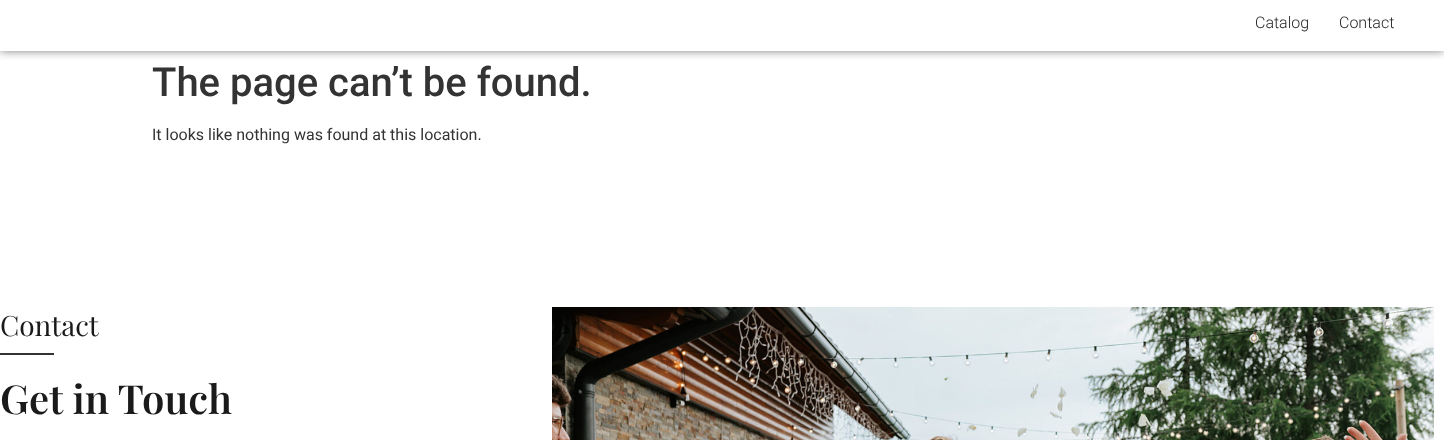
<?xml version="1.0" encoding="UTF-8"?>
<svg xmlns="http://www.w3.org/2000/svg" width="1444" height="440">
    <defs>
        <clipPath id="clip1"><rect x="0" y="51" width="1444" height="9"/></clipPath>
        <filter id="blur1" x="-50%" y="-200%" width="200%" height="500%"><feGaussianBlur stdDeviation="5"/></filter>
    </defs>
    <rect width="100%" height="100%" fill="#FFFFFF"/>
    <g clip-path="url(#clip1)">
        <rect x="0" y="0" width="1444" height="51" fill="#000000" fill-opacity="0.5" filter="url(#blur1)"/>
    </g>
    <text x="1255" y="28" font-family="Roboto" font-size="16" font-weight="300" fill="#262626">Catalog</text>
    <text x="1339" y="28" font-family="Roboto" font-size="16" font-weight="300" fill="#262626">Contact</text>
    <text x="152" y="96" font-family="Roboto" font-size="40" font-weight="500" fill="#333333">The page can’t be found.</text>
    <text x="152" y="140" font-family="Roboto" font-size="16" fill="#333333">It looks like nothing was found at this location.</text>
    <rect x="0" y="353" width="54" height="2" fill="#333333"/>
    <text x="0" y="336" font-family="Playfair Display" font-size="28" fill="#1A1A1A">Contact</text>
    <text x="0" y="414" font-family="Playfair Display" font-size="40" font-weight="600" fill="#1A1A1A">Get in Touch</text>
    <image x="552" y="307" width="882" height="133" href="img_01.png"/>
</svg>
